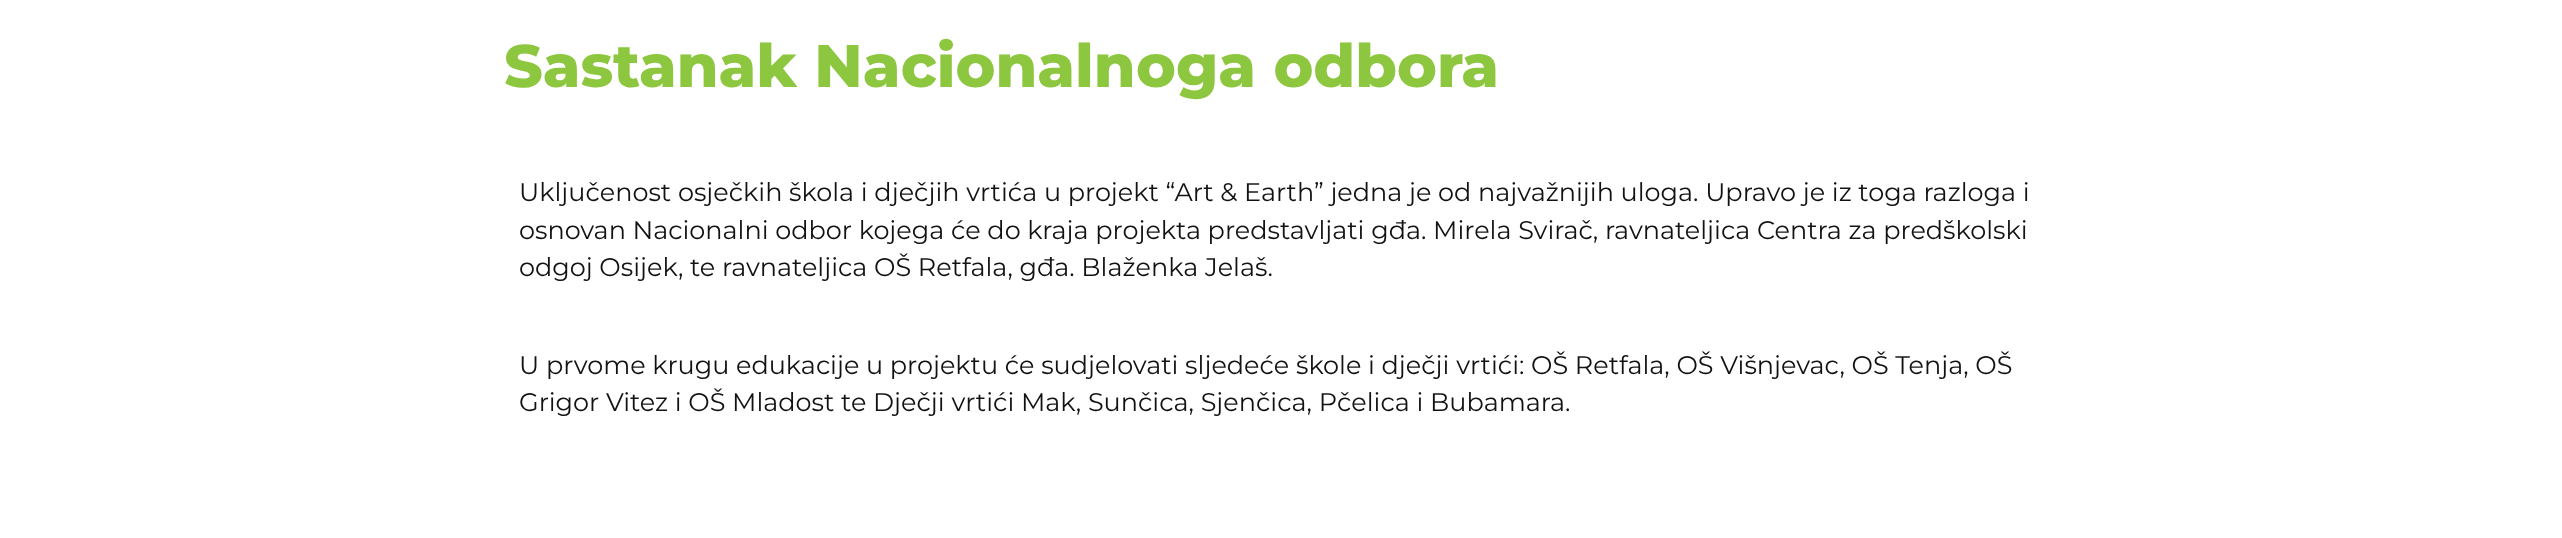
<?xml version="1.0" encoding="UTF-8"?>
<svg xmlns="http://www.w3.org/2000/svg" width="2562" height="538">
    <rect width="100%" height="100%" fill="#FFFFFF"/>
    <text x="504" y="87" font-family="Montserrat" font-size="60" font-weight="800" fill="#8DC73F">Sastanak Nacionalnoga odbora</text>
    <text font-family="Montserrat" font-size="25.5" fill="#121212">
        <tspan x="519" y="201">Uključenost osječkih škola i dječjih vrtića u projekt “Art &amp; Earth” jedna je od najvažnijih uloga. Upravo je iz toga razloga i</tspan>
        <tspan x="519" y="239">osnovan Nacionalni odbor kojega će do kraja projekta predstavljati gđa. Mirela Svirač, ravnateljica Centra za predškolski</tspan>
        <tspan x="519" y="276">odgoj Osijek, te ravnateljica OŠ Retfala, gđa. Blaženka Jelaš.</tspan>
    </text>
    <text font-family="Montserrat" font-size="25.5" fill="#121212">
        <tspan x="519" y="374">U prvome krugu edukacije u projektu će sudjelovati sljedeće škole i dječji vrtići: OŠ Retfala, OŠ Višnjevac, OŠ Tenja, OŠ</tspan>
        <tspan x="519" y="411">Grigor Vitez i OŠ Mladost te Dječji vrtići Mak, Sunčica, Sjenčica, Pčelica i Bubamara.</tspan>
    </text>
</svg>
